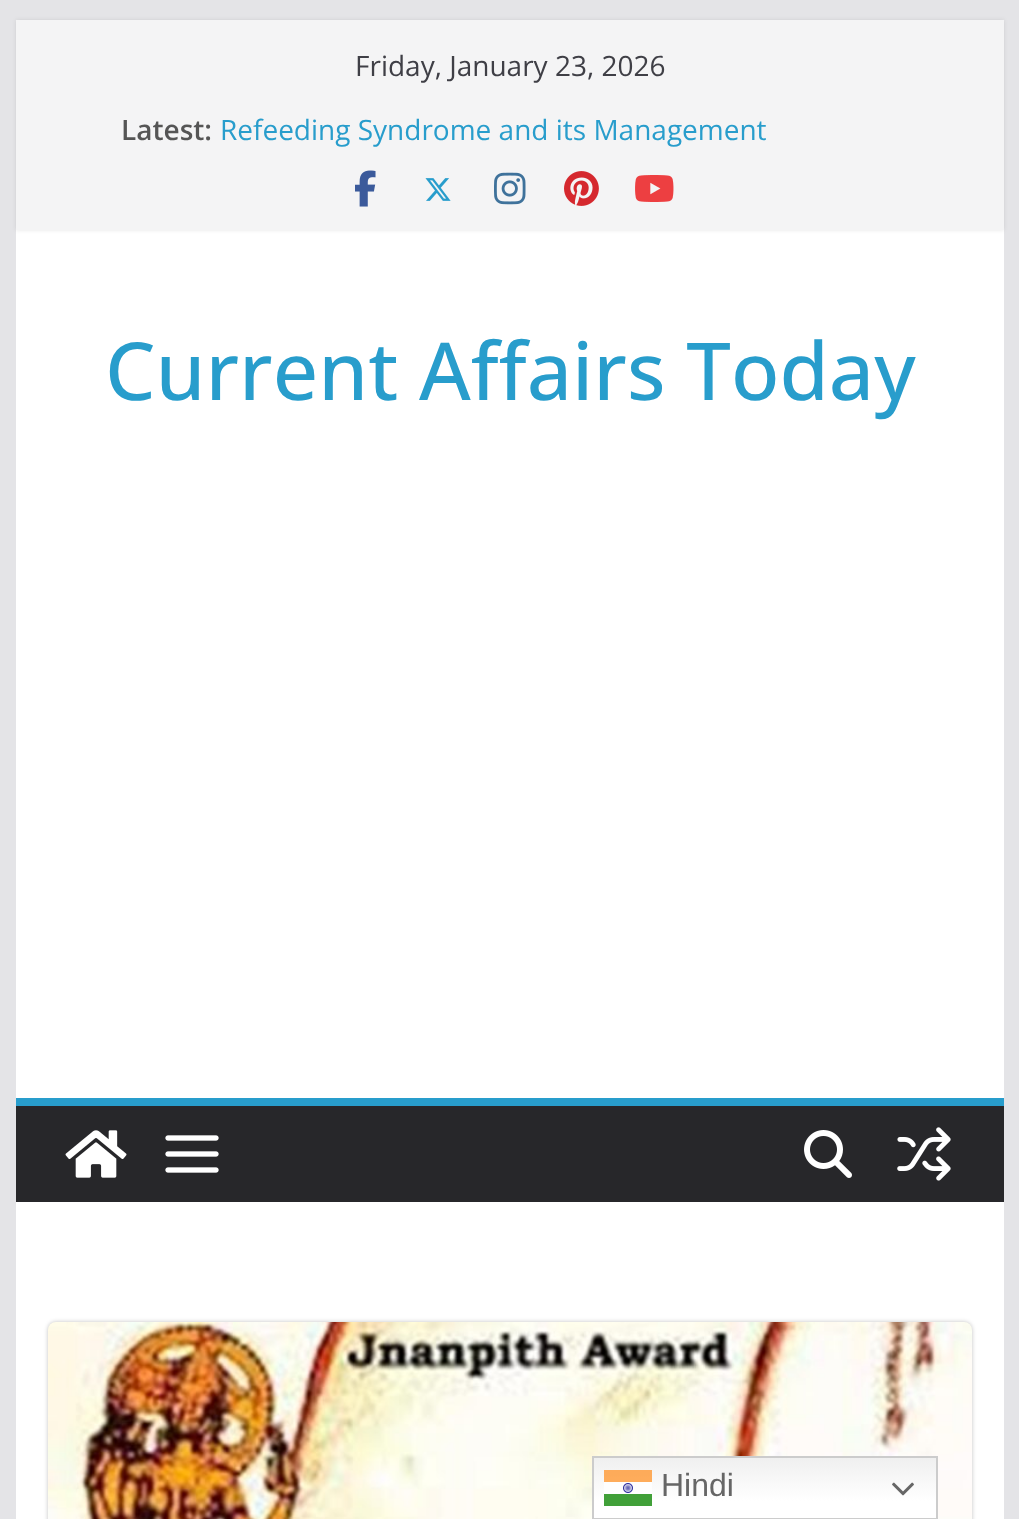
<?xml version="1.0" encoding="UTF-8"?>
<svg xmlns="http://www.w3.org/2000/svg" width="1019" height="1519">
    <defs>
        <filter id="blur1" x="-50%" y="-200%" width="200%" height="500%"><feGaussianBlur stdDeviation="2"/></filter>
        <linearGradient id="g1" gradientUnits="userSpaceOnUse" x1="765" y1="1456" x2="765" y2="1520"><stop offset="0" stop-color="#EFEFEF"/><stop offset="0.7" stop-color="#FFFFFF"/></linearGradient>
    </defs>
    <rect width="100%" height="100%" fill="#E4E4E7"/>
    <rect x="16" y="230" width="988" height="868" fill="#FFFFFF"/>
    <rect x="16" y="20" width="988" height="210" fill="#000000" fill-opacity="0.1" filter="url(#blur1)"/>
    <rect x="16" y="20" width="988" height="210" fill="#F4F4F5"/>
    <text x="355" y="76" font-family="Open Sans" font-size="28" fill="#3F3F46">Friday, January 23, 2026</text>
    <text x="121" y="140" font-family="Open Sans" font-size="28" font-weight="600" fill="#555555">Latest:</text>
    <text x="220" y="140" font-family="Open Sans" font-size="28" fill="#289DCC">Refeeding Syndrome and its Management</text>
    <image x="355" y="170" width="21" height="37" href="img_01.png"/>
    <image x="425" y="178" width="26" height="23" href="img_02.png"/>
    <image x="494" y="172" width="32" height="33" href="img_03.png"/>
    <image x="564" y="171" width="35" height="35" href="img_04.png"/>
    <image x="635" y="175" width="39" height="27" href="img_05.png"/>
    <text x="105" y="400" font-family="Open Sans" font-size="80" font-weight="500" fill="#289DCC">Current Affairs Today</text>
    <rect x="16" y="1106" width="988" height="96" fill="#27272A"/>
    <rect x="16" y="1098" width="988" height="8" fill="#289DCC"/>
    <image x="65" y="1130" width="62" height="48" href="img_06.png"/>
    <image x="165" y="1135" width="54" height="38" href="img_07.png"/>
    <image x="804" y="1130" width="48" height="48" href="img_08.png"/>
    <image x="897" y="1127" width="54" height="54" href="img_09.png"/>
    <rect x="16" y="1202" width="988" height="317" fill="#FFFFFF"/>
    <rect x="48" y="1322" width="924" height="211" rx="8" fill="#000000" fill-opacity="0.24" filter="url(#blur1)"/>
    <image x="48" y="1322" width="924" height="197" href="img_10.png"/>
    <rect x="594" y="1458" width="342" height="60" fill="url(#g1)"/>
    <rect x="593" y="1457" width="344" height="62" fill="none" stroke="#CCCCCC" stroke-width="2"/>
    <image x="604" y="1470" width="48" height="36" href="img_11.png"/>
    <text x="661" y="1496" font-family="Liberation Sans" font-size="32" fill="#666666">Hindi</text>
    <image x="892" y="1482" width="22" height="14" href="img_12.png"/>
</svg>
